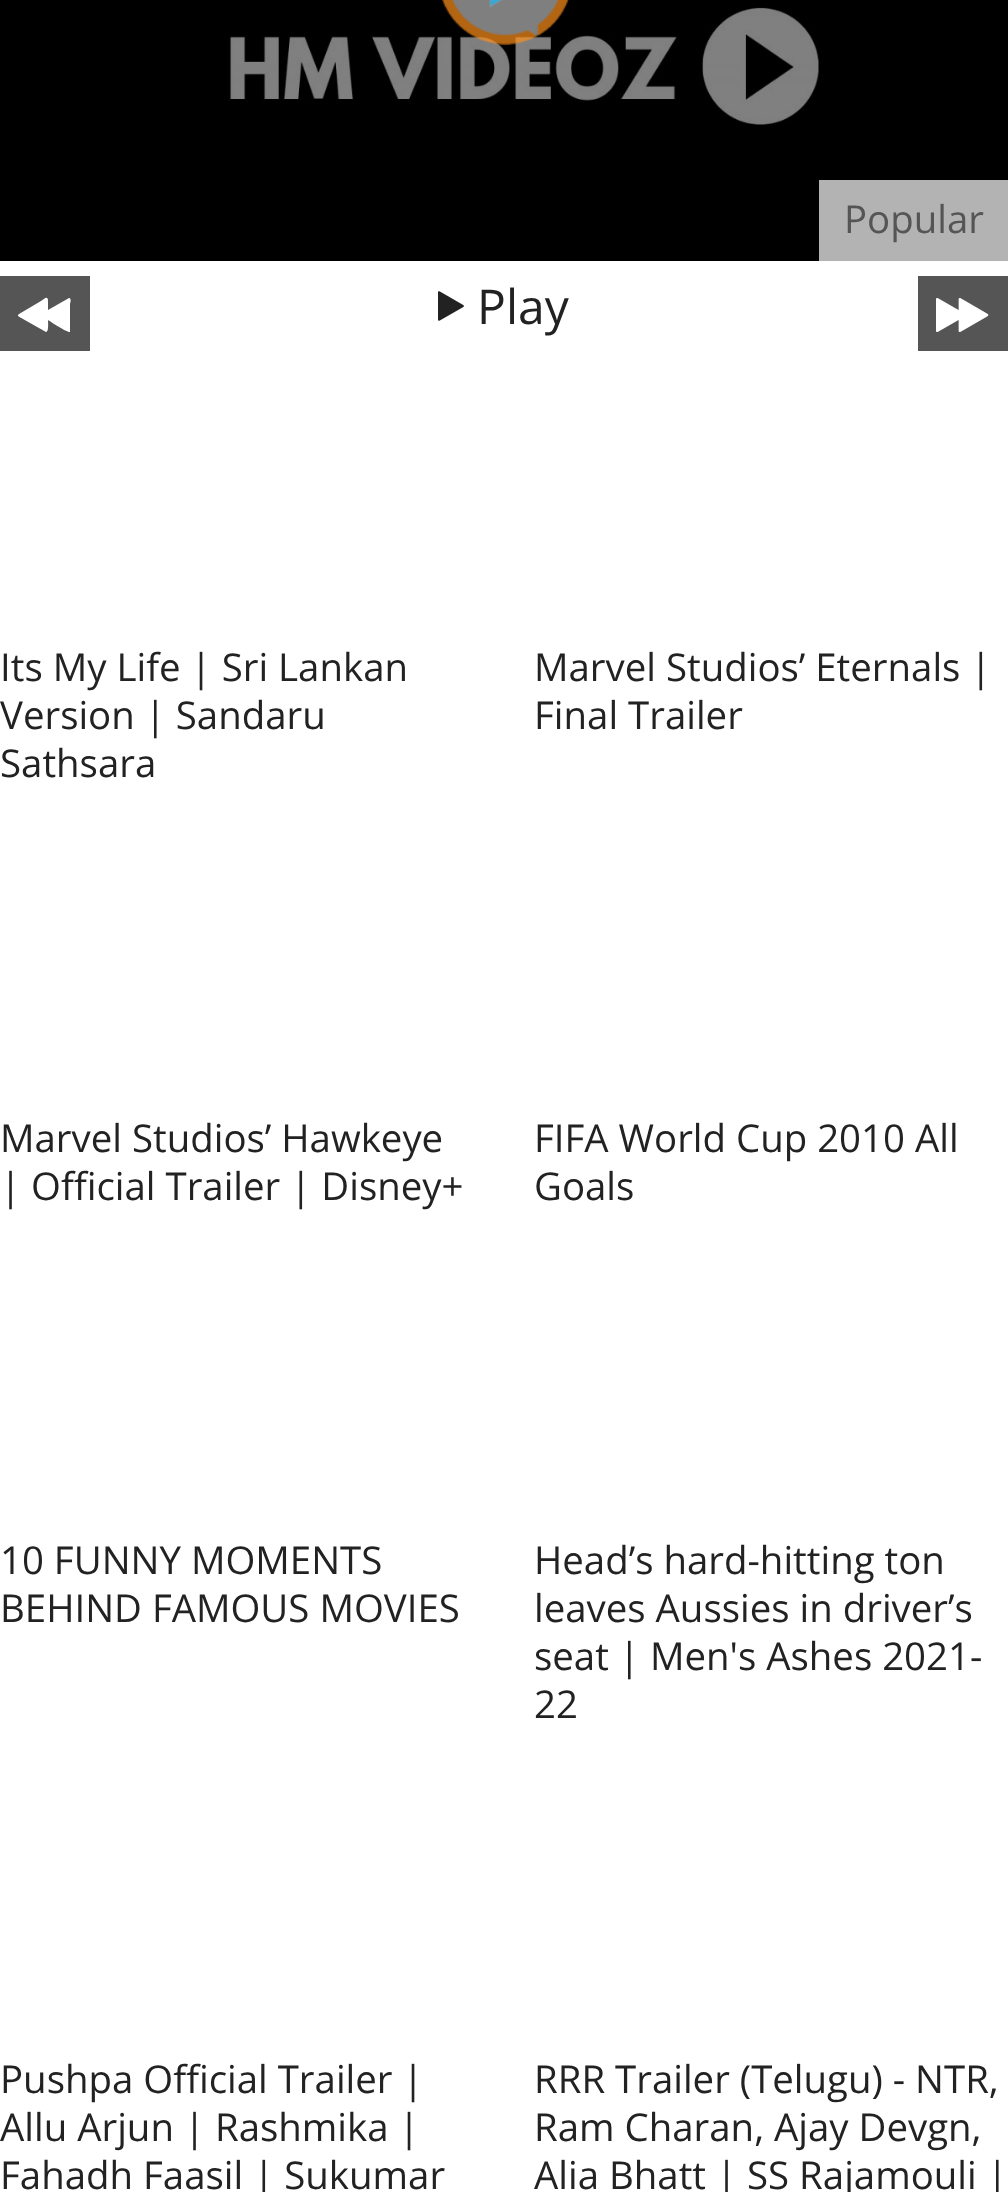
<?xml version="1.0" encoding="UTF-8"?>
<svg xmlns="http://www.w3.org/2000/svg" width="1008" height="2192">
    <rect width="100%" height="100%" fill="#FFFFFF"/>
    <image x="0" y="0" width="1008" height="261" href="img_01.png"/>
    <image x="442" y="0" width="127" height="45" href="img_02.png"/>
    <image x="489" y="0" width="14" height="8" href="img_03.png"/>
    <rect x="819" y="180" width="189" height="81" fill="#B3B3B3"/>
    <text x="844" y="233" font-family="Open Sans" font-size="38.4" fill="#555555">Popular</text>
    <rect x="0" y="276" width="90" height="75" fill="#555555"/>
    <path d="M 69 298 C 72 298 70 304 70 304 V 331 V 332 C 68 333 51 322 48 320 C 48 322 49 332 46 332 L 23 319 C 20 317 16 316 19 314 L 41 301 C 44 299 48 295 48 301 V 310 Z" fill="#FFFFFF"/>
    <image x="438" y="291" width="26" height="30" href="img_04.png"/>
    <text x="477" y="324" font-family="Open Sans" font-size="48" fill="#222222">Play</text>
    <rect x="918" y="276" width="90" height="75" fill="#555555"/>
    <image x="936" y="298" width="53" height="34" href="img_05.png"/>
    <text font-family="Open Sans" font-size="38.4" fill="#222222">
        <tspan x="0" y="681">Its My Life | Sri Lankan</tspan>
        <tspan x="0" y="729">Version | Sandaru</tspan>
        <tspan x="0" y="777">Sathsara</tspan>
    </text>
    <text font-family="Open Sans" font-size="38.4" fill="#222222">
        <tspan x="534" y="681">Marvel Studios’ Eternals |</tspan>
        <tspan x="534" y="729">Final Trailer</tspan>
    </text>
    <text font-family="Open Sans" font-size="38.4" fill="#222222">
        <tspan x="0" y="1152">Marvel Studios’ Hawkeye</tspan>
        <tspan x="0" y="1200">| Official Trailer | Disney+</tspan>
    </text>
    <text font-family="Open Sans" font-size="38.4" fill="#222222">
        <tspan x="534" y="1152">FIFA World Cup 2010 All</tspan>
        <tspan x="534" y="1200">Goals</tspan>
    </text>
    <text font-family="Open Sans" font-size="38.4" fill="#222222">
        <tspan x="0" y="1574">10 FUNNY MOMENTS</tspan>
        <tspan x="0" y="1622">BEHIND FAMOUS MOVIES</tspan>
    </text>
    <text font-family="Open Sans" font-size="38.4" fill="#222222">
        <tspan x="534" y="1574">Head’s hard-hitting ton</tspan>
        <tspan x="534" y="1622">leaves Aussies in driver’s</tspan>
        <tspan x="534" y="1670">seat | Men's Ashes 2021-</tspan>
        <tspan x="534" y="1718">22</tspan>
    </text>
    <text font-family="Open Sans" font-size="38.4" fill="#222222">
        <tspan x="0" y="2093">Pushpa Official Trailer |</tspan>
        <tspan x="0" y="2141">Allu Arjun | Rashmika |</tspan>
        <tspan x="0" y="2189">Fahadh Faasil | Sukumar</tspan>
    </text>
    <text font-family="Open Sans" font-size="38.4" fill="#222222">
        <tspan x="534" y="2093">RRR Trailer (Telugu) - NTR,</tspan>
        <tspan x="534" y="2141">Ram Charan, Ajay Devgn,</tspan>
        <tspan x="534" y="2189">Alia Bhatt | SS Rajamouli |</tspan>
    </text>
</svg>
